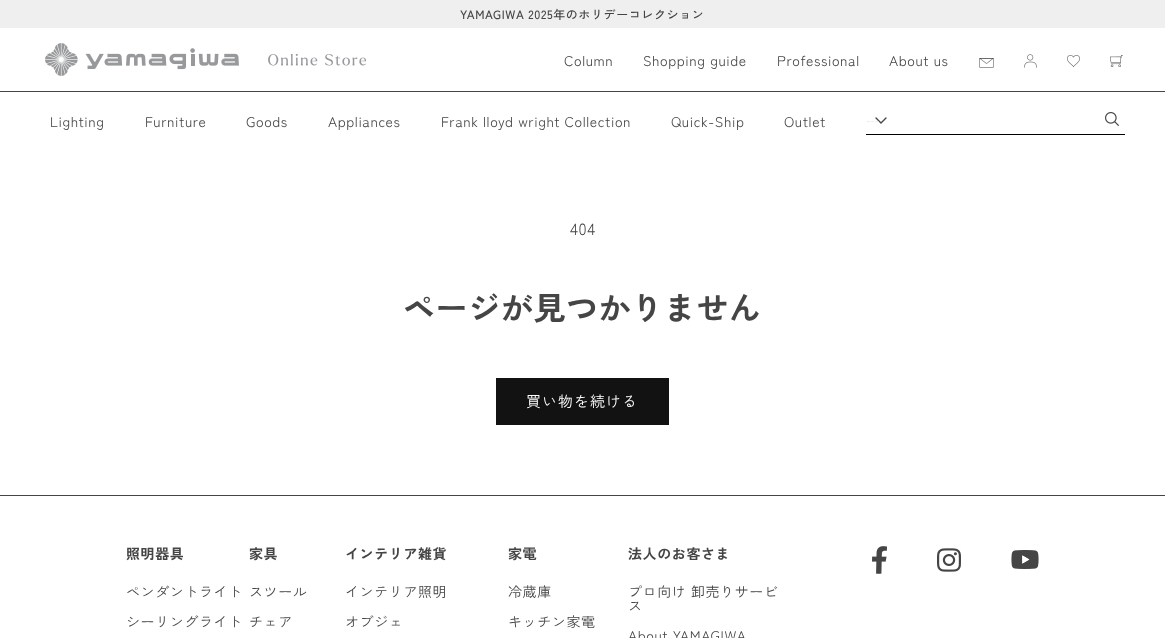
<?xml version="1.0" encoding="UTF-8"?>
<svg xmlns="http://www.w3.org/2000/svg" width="1165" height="638">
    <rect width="100%" height="100%" fill="#FFFFFF"/>
    <rect x="0" y="0" width="1165" height="28" fill="#EFEFEF"/>
    <text x="460" y="19" font-family="Zen Kaku Gothic New" font-size="12" font-weight="500" letter-spacing="0.6" fill="#454545">YAMAGIWA 2025年のホリデーコレクション</text>
    <image x="45" y="43" width="321" height="33" href="img_01.png"/>
    <text x="564" y="66" font-family="Zen Kaku Gothic New" font-size="14" letter-spacing="0.6" fill="#454545">Column</text>
    <text x="643" y="66" font-family="Zen Kaku Gothic New" font-size="14" letter-spacing="0.6" fill="#454545">Shopping guide</text>
    <text x="777" y="66" font-family="Zen Kaku Gothic New" font-size="14" letter-spacing="0.6" fill="#454545">Professional</text>
    <text x="889" y="66" font-family="Zen Kaku Gothic New" font-size="14" letter-spacing="0.6" fill="#454545">About us</text>
    <image x="979" y="58" width="15" height="10" href="img_02.png"/>
    <image x="1024" y="54" width="13" height="14" href="img_03.png"/>
    <image x="1067" y="55" width="13" height="12" href="img_04.png"/>
    <image x="1110" y="55" width="13" height="12" href="img_05.png"/>
    <rect x="0" y="91" width="1165" height="1" fill="#454545"/>
    <text x="50" y="127" font-family="Zen Kaku Gothic New" font-size="14" letter-spacing="0.6" fill="#454545">Lighting</text>
    <text x="145" y="127" font-family="Zen Kaku Gothic New" font-size="14" letter-spacing="0.6" fill="#454545">Furniture</text>
    <text x="246" y="127" font-family="Zen Kaku Gothic New" font-size="14" letter-spacing="0.6" fill="#454545">Goods</text>
    <text x="328" y="127" font-family="Zen Kaku Gothic New" font-size="14" letter-spacing="0.6" fill="#454545">Appliances</text>
    <text x="441" y="127" font-family="Zen Kaku Gothic New" font-size="14" letter-spacing="0.6" fill="#454545">Frank lloyd wright Collection</text>
    <text x="671" y="127" font-family="Zen Kaku Gothic New" font-size="14" letter-spacing="0.6" fill="#454545">Quick-Ship</text>
    <text x="784" y="127" font-family="Zen Kaku Gothic New" font-size="14" letter-spacing="0.6" fill="#454545">Outlet</text>
    <path d="M 876 118 L 881 123 L 886 118" fill="none" stroke="#454545" stroke-width="1.4" stroke-linecap="round" stroke-linejoin="round"/>
    <text x="866" y="125" font-family="Liberation Sans" font-size="13" fill="#EEEEEE">---</text>
    <image x="1105" y="112" width="14" height="14" href="img_06.png"/>
    <rect x="866" y="134" width="259" height="1" fill="#000000"/>
    <text x="570" y="235" font-family="Zen Kaku Gothic New" font-size="16" letter-spacing="0.6" fill="#454545">404</text>
    <text x="403" y="320" font-family="Zen Kaku Gothic New" font-size="32" font-weight="700" letter-spacing="0.6" fill="#454545">ページが見つかりません</text>
    <rect x="496" y="378" width="173" height="47" fill="#121212"/>
    <text x="526" y="407" font-family="Zen Kaku Gothic New" font-size="15" letter-spacing="1" fill="#FFFFFF">買い物を続ける</text>
    <rect x="0" y="495" width="1165" height="1" fill="#454545"/>
    <text x="126" y="559" font-family="Zen Kaku Gothic New" font-size="14" font-weight="700" letter-spacing="0.6" fill="#454545">照明器具</text>
    <text x="126" y="597" font-family="Zen Kaku Gothic New" font-size="14" letter-spacing="0.6" fill="#454545">ペンダントライト</text>
    <text x="126" y="627" font-family="Zen Kaku Gothic New" font-size="14" letter-spacing="0.6" fill="#454545">シーリングライト</text>
    <text x="249" y="559" font-family="Zen Kaku Gothic New" font-size="14" font-weight="700" letter-spacing="0.6" fill="#454545">家具</text>
    <text x="249" y="597" font-family="Zen Kaku Gothic New" font-size="14" letter-spacing="0.6" fill="#454545">スツール</text>
    <text x="249" y="627" font-family="Zen Kaku Gothic New" font-size="14" letter-spacing="0.6" fill="#454545">チェア</text>
    <text x="345" y="559" font-family="Zen Kaku Gothic New" font-size="14" font-weight="700" letter-spacing="0.6" fill="#454545">インテリア雑貨</text>
    <text x="345" y="597" font-family="Zen Kaku Gothic New" font-size="14" letter-spacing="0.6" fill="#454545">インテリア照明</text>
    <text x="345" y="627" font-family="Zen Kaku Gothic New" font-size="14" letter-spacing="0.6" fill="#454545">オブジェ</text>
    <text x="508" y="559" font-family="Zen Kaku Gothic New" font-size="14" font-weight="700" letter-spacing="0.6" fill="#454545">家電</text>
    <text x="508" y="597" font-family="Zen Kaku Gothic New" font-size="14" letter-spacing="0.6" fill="#454545">冷蔵庫</text>
    <text x="508" y="627" font-family="Zen Kaku Gothic New" font-size="14" letter-spacing="0.6" fill="#454545">キッチン家電</text>
    <text x="628" y="559" font-family="Zen Kaku Gothic New" font-size="14" font-weight="700" letter-spacing="0.6" fill="#454545">法人のお客さま</text>
    <text font-family="Zen Kaku Gothic New" font-size="14" letter-spacing="0.6" fill="#454545">
        <tspan x="628" y="597">プロ向け 卸売りサービ</tspan>
        <tspan x="628" y="611">ス</tspan>
    </text>
    <text x="628" y="641" font-family="Zen Kaku Gothic New" font-size="14" letter-spacing="0.6" fill="#454545">About YAMAGIWA</text>
    <image x="872" y="546" width="15" height="28" href="img_07.png"/>
    <image x="937" y="548" width="24" height="24" href="img_08.png"/>
    <image x="1011" y="550" width="28" height="19" href="img_09.png"/>
</svg>
